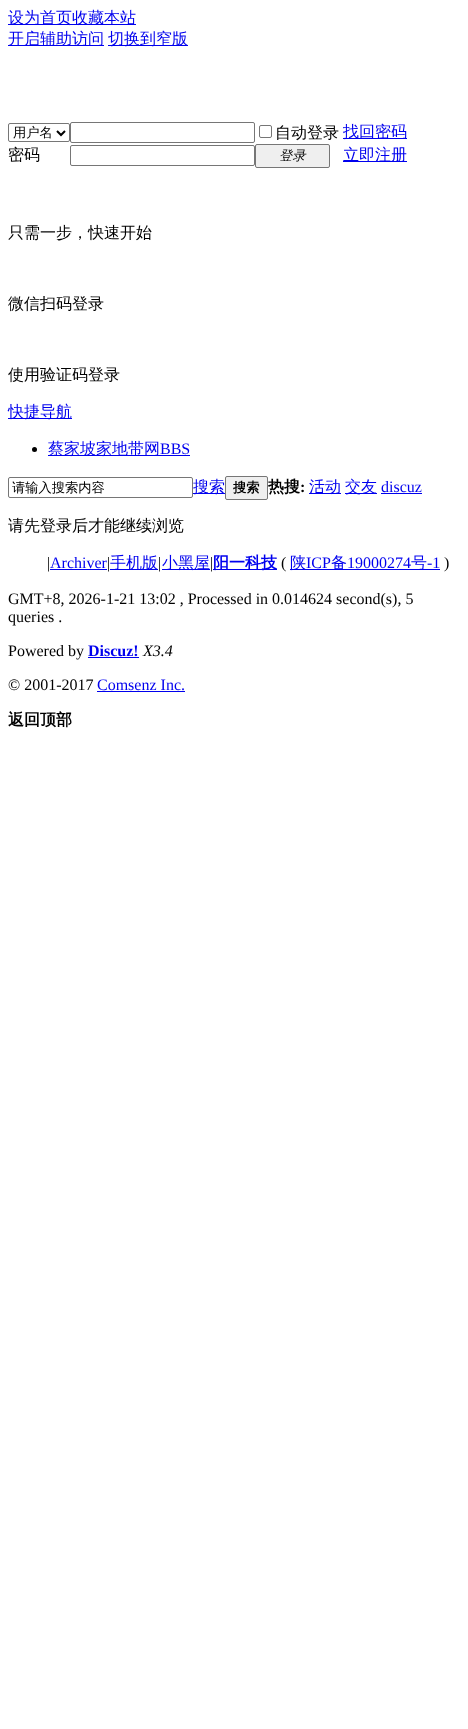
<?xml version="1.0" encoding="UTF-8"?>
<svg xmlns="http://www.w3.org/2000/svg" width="468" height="1729">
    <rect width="100%" height="100%" fill="#FFFFFF"/>
    <rect x="8" y="24" width="128" height="1" fill="#0000EE"/>
    <text x="8" y="23" font-family="WenQuanYi Zen Hei" font-size="16" font-weight="500" fill="#0000EE">设为首页收藏本站</text>
    <rect x="8" y="45" width="96" height="1" fill="#0000EE"/>
    <text x="8" y="44" font-family="WenQuanYi Zen Hei" font-size="16" font-weight="500" fill="#0000EE">开启辅助访问</text>
    <rect x="108" y="45" width="80" height="1" fill="#0000EE"/>
    <text x="108" y="44" font-family="WenQuanYi Zen Hei" font-size="16" font-weight="500" fill="#0000EE">切换到窄版</text>
    <rect x="8.5" y="123.5" width="61" height="18" rx="1.5" fill="none" stroke="#767676"/>
    <path d="M 57 131 L 61 135 L 65 131" fill="none" stroke="#000000" stroke-width="2"/>
    <text x="13" y="137" font-family="WenQuanYi Zen Hei" font-size="13.25" font-weight="500" fill="#000000">用户名</text>
    <rect x="70.5" y="122.5" width="184" height="20" rx="1.5" fill="none" stroke="#767676"/>
    <rect x="259.5" y="125.5" width="12" height="12" rx="1.5" fill="none" stroke="#767676"/>
    <text x="275" y="138" font-family="WenQuanYi Zen Hei" font-size="16" font-weight="500" fill="#000000">自动登录</text>
    <rect x="343" y="138" width="64" height="1" fill="#0000EE"/>
    <text x="343" y="137" font-family="WenQuanYi Zen Hei" font-size="16" font-weight="500" fill="#0000EE">找回密码</text>
    <text x="8" y="160" font-family="WenQuanYi Zen Hei" font-size="16" font-weight="500" fill="#000000">密码</text>
    <rect x="70.5" y="145.5" width="184" height="20" rx="1.5" fill="none" stroke="#767676"/>
    <rect x="255.5" y="144.5" width="74" height="23" rx="1.5" fill="#EFEFEF" stroke="#767676"/>
    <text x="279" y="160" font-family="WenQuanYi Zen Hei" font-size="13.25" font-weight="500" font-style="italic" fill="#000000">登录</text>
    <rect x="343" y="161" width="64" height="1" fill="#0000EE"/>
    <text x="343" y="160" font-family="WenQuanYi Zen Hei" font-size="16" font-weight="500" fill="#0000EE">立即注册</text>
    <text x="8" y="238" font-family="WenQuanYi Zen Hei" font-size="16" font-weight="500" fill="#000000">只需一步，快速开始</text>
    <text x="8" y="309" font-family="WenQuanYi Zen Hei" font-size="16" font-weight="500" fill="#000000">微信扫码登录</text>
    <text x="8" y="380" font-family="WenQuanYi Zen Hei" font-size="16" font-weight="500" fill="#000000">使用验证码登录</text>
    <rect x="8" y="418" width="64" height="1" fill="#0000EE"/>
    <text x="8" y="417" font-family="WenQuanYi Zen Hei" font-size="16" font-weight="500" fill="#0000EE">快捷导航</text>
    <circle cx="34.5" cy="449.5" r="2.5" fill="#000000"/>
    <rect x="48" y="455" width="142" height="1" fill="#0000EE"/>
    <text x="48" y="454" font-family="WenQuanYi Zen Hei" font-size="16" font-weight="500" fill="#0000EE">蔡家坡家地带网</text>
    <text x="160" y="454" font-family="Liberation Serif" font-size="16" fill="#0000EE">BBS</text>
    <rect x="8.5" y="477.5" width="184" height="20" rx="1.5" fill="none" stroke="#767676"/>
    <text x="12" y="492" font-family="WenQuanYi Zen Hei" font-size="13.25" font-weight="500" fill="#000000">请输入搜索内容</text>
    <rect x="193" y="493" width="32" height="1" fill="#0000EE"/>
    <text x="193" y="492" font-family="WenQuanYi Zen Hei" font-size="16" font-weight="500" fill="#0000EE">搜索</text>
    <rect x="225.5" y="476.5" width="42" height="23" rx="1.5" fill="#EFEFEF" stroke="#767676"/>
    <text x="233" y="492" font-family="WenQuanYi Zen Hei" font-size="13.25" font-weight="700" fill="#000000">搜索</text>
    <text x="268" y="492" font-family="WenQuanYi Zen Hei" font-size="16" font-weight="700" fill="#000000">热搜</text>
    <text x="300" y="492" font-family="Liberation Serif" font-size="16" font-weight="700" fill="#000000">:</text>
    <rect x="309" y="493" width="32" height="1" fill="#0000EE"/>
    <text x="309" y="492" font-family="WenQuanYi Zen Hei" font-size="16" font-weight="500" fill="#0000EE">活动</text>
    <rect x="345" y="493" width="32" height="1" fill="#0000EE"/>
    <text x="345" y="492" font-family="WenQuanYi Zen Hei" font-size="16" font-weight="500" fill="#0000EE">交友</text>
    <text x="381" y="492" font-family="Liberation Serif" font-size="16" fill="#0000EE">discuz</text>
    <rect x="381" y="493" width="41" height="1" fill="#0000EE"/>
    <text x="8" y="531" font-family="WenQuanYi Zen Hei" font-size="16" font-weight="500" fill="#000000">请先登录后才能继续浏览</text>
    <text x="47" y="568" font-family="Liberation Serif" font-size="16" fill="#000000">|</text>
    <text x="50" y="568" font-family="Liberation Serif" font-size="16" fill="#0000EE">Archiver</text>
    <rect x="50" y="569" width="57" height="1" fill="#0000EE"/>
    <text x="107" y="568" font-family="Liberation Serif" font-size="16" fill="#000000">|</text>
    <rect x="110" y="569" width="48" height="1" fill="#0000EE"/>
    <text x="110" y="568" font-family="WenQuanYi Zen Hei" font-size="16" font-weight="500" fill="#0000EE">手机版</text>
    <text x="158" y="568" font-family="Liberation Serif" font-size="16" fill="#000000">|</text>
    <rect x="162" y="569" width="48" height="1" fill="#0000EE"/>
    <text x="162" y="568" font-family="WenQuanYi Zen Hei" font-size="16" font-weight="500" fill="#0000EE">小黑屋</text>
    <text x="210" y="568" font-family="Liberation Serif" font-size="16" fill="#000000">|</text>
    <rect x="213" y="569" width="64" height="1" fill="#0000EE"/>
    <text x="213" y="568" font-family="WenQuanYi Zen Hei" font-size="16" font-weight="700" fill="#0000EE">阳一科技</text>
    <text x="281" y="568" font-family="Liberation Serif" font-size="16" fill="#000000">(</text>
    <rect x="290" y="569" width="150" height="1" fill="#0000EE"/>
    <text x="290" y="568" font-family="WenQuanYi Zen Hei" font-size="16" font-weight="500" fill="#0000EE">陕</text>
    <text x="306" y="568" font-family="Liberation Serif" font-size="16" fill="#0000EE">ICP</text>
    <text x="331" y="568" font-family="WenQuanYi Zen Hei" font-size="16" font-weight="500" fill="#0000EE">备</text>
    <text x="347" y="568" font-family="Liberation Serif" font-size="16" fill="#0000EE">19000274</text>
    <text x="411" y="568" font-family="WenQuanYi Zen Hei" font-size="16" font-weight="500" fill="#0000EE">号</text>
    <text x="427" y="568" font-family="Liberation Serif" font-size="16" fill="#0000EE">-1</text>
    <text x="444" y="568" font-family="Liberation Serif" font-size="16" fill="#000000">)</text>
    <text font-family="Liberation Serif" font-size="16" fill="#000000">
        <tspan x="8" y="604">GMT+8, 2026-1-21 13:02 , Processed in 0.014624 second(s), 5</tspan>
        <tspan x="8" y="622">queries .</tspan>
    </text>
    <text x="8" y="656" font-family="Liberation Serif" font-size="16" fill="#000000">Powered by</text>
    <text x="88" y="656" font-family="Liberation Serif" font-size="16" font-weight="700" fill="#0000EE">Discuz!</text>
    <rect x="88" y="657" width="51" height="1" fill="#0000EE"/>
    <text x="143" y="656" font-family="Liberation Serif" font-size="16" font-style="italic" fill="#000000">X3.4</text>
    <text x="8" y="690" font-family="Liberation Serif" font-size="16" fill="#000000">© 2001-2017</text>
    <text x="97" y="690" font-family="Liberation Serif" font-size="16" fill="#0000EE">Comsenz Inc.</text>
    <rect x="97" y="691" width="88" height="1" fill="#0000EE"/>
    <text x="8" y="725" font-family="WenQuanYi Zen Hei" font-size="16" font-weight="700" fill="#000000">返回顶部</text>
</svg>
